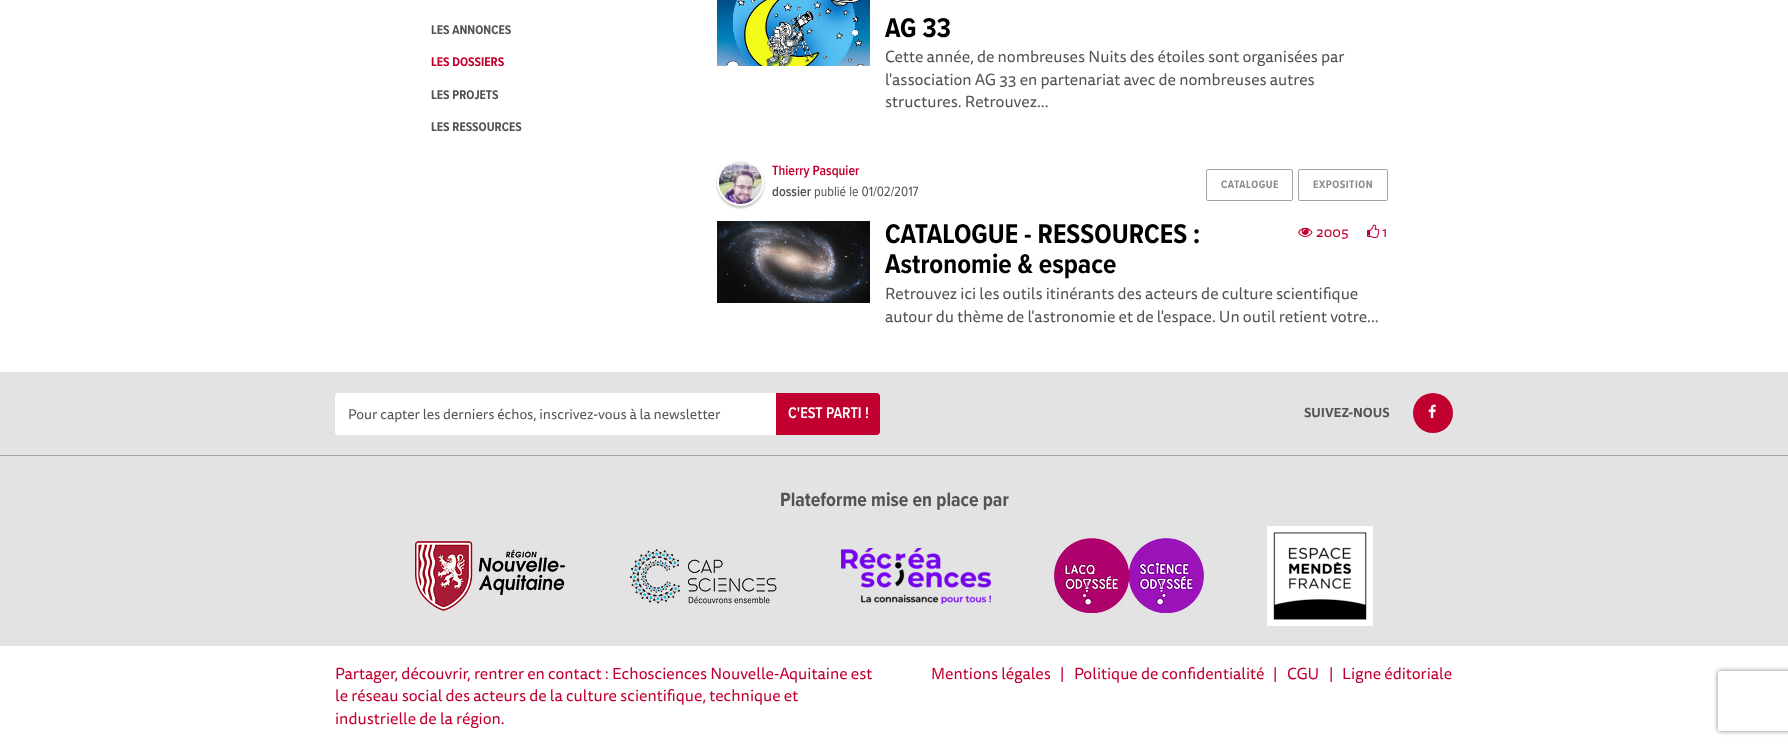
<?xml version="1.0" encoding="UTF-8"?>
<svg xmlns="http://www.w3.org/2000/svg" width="1788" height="745">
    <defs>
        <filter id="blur1" x="-50%" y="-200%" width="200%" height="500%"><feGaussianBlur stdDeviation="1"/></filter>
        <clipPath id="clip1"><path d="M 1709 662 H 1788 V 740 H 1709 Z M 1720 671 H 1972 C 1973 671 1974 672 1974 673 V 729 C 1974 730 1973 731 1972 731 H 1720 C 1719 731 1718 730 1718 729 V 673 C 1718 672 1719 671 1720 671 Z" clip-rule="evenodd"/></clipPath>
        <filter id="blur2" x="-50%" y="-200%" width="200%" height="500%"><feGaussianBlur stdDeviation="2.5"/></filter>
    </defs>
    <rect width="100%" height="100%" fill="#FFFFFF"/>
    <text x="431" y="34" font-family="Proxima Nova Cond" font-size="13" font-weight="700" fill="#535353">LES ANNONCES</text>
    <text x="431" y="66" font-family="Proxima Nova Cond" font-size="13" font-weight="700" fill="#C2002F">LES DOSSIERS</text>
    <text x="431" y="99" font-family="Proxima Nova Cond" font-size="13" font-weight="700" fill="#535353">LES PROJETS</text>
    <text x="431" y="131" font-family="Proxima Nova Cond" font-size="13" font-weight="700" fill="#535353">LES RESSOURCES</text>
    <image x="717" y="0" width="153" height="66" href="img_01.png"/>
    <text x="885" y="37" font-family="Proxima Nova Cond" font-size="28" font-weight="700" fill="#000000">AG 33</text>
    <text font-family="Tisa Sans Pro" font-size="16" fill="#535353">
        <tspan x="885" y="62">Cette année, de nombreuses Nuits des étoiles sont organisées par</tspan>
        <tspan x="885" y="85">l'association AG 33 en partenariat avec de nombreuses autres</tspan>
        <tspan x="885" y="107">structures. Retrouvez...</tspan>
    </text>
    <rect x="717" y="161" width="47" height="47" rx="23.5" fill="#000000" fill-opacity="0.25" filter="url(#blur1)"/>
    <circle cx="740.5" cy="182.5" r="22.5" fill="#FFFFFF" stroke="#FFFFFF" stroke-width="2"/>
    <image x="719" y="161" width="43" height="43" href="img_02.png"/>
    <text x="772" y="175" font-family="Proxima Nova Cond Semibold" font-size="14" font-weight="600" fill="#C2002F">Thierry Pasquier</text>
    <text x="772" y="196" font-family="Proxima Nova Cond Semibold" font-size="14" font-weight="600" fill="#535353">dossier</text>
    <text x="814" y="196" font-family="Proxima Nova Cond" font-size="14" fill="#535353">publié le 01/02/2017</text>
    <rect x="1206.5" y="169.5" width="86" height="31" rx="1.5" fill="none" stroke="#A4A4A4"/>
    <text x="1221" y="188" font-family="Proxima Nova Cond" font-size="11.25" font-weight="700" letter-spacing="0.5" fill="#8E8B8B">CATALOGUE</text>
    <rect x="1298.5" y="169.5" width="89" height="31" rx="1.5" fill="none" stroke="#A4A4A4"/>
    <text x="1313" y="188" font-family="Proxima Nova Cond" font-size="11.25" font-weight="700" letter-spacing="0.5" fill="#8E8B8B">EXPOSITION</text>
    <image x="717" y="221" width="153" height="82" href="img_03.png"/>
    <text font-family="Proxima Nova Cond" font-size="28" font-weight="700" fill="#000000">
        <tspan x="885" y="243">CATALOGUE - RESSOURCES :</tspan>
        <tspan x="885" y="273">Astronomie &amp; espace</tspan>
    </text>
    <text font-family="Tisa Sans Pro" font-size="16" fill="#535353">
        <tspan x="885" y="299">Retrouvez ici les outils itinérants des acteurs de culture scientifique</tspan>
        <tspan x="885" y="322">autour du thème de l'astronomie et de l'espace. Un outil retient votre...</tspan>
    </text>
    <image x="1298" y="227" width="15" height="10" href="img_04.png"/>
    <text x="1316" y="237" font-family="Tisa Sans Pro" font-size="14" fill="#C2002F">2005</text>
    <image x="1367" y="224" width="13" height="14" href="img_05.png"/>
    <text x="1382" y="237" font-family="Tisa Sans Pro" font-size="14" fill="#C2002F">1</text>
    <rect x="0" y="372" width="1788" height="83" fill="#E3E3E3"/>
    <path d="M 338 393.5 H 879.5 V 434.5 H 338 C 336.5 434.5 335.5 433.5 335.5 432 V 396 C 335.5 394.5 336.5 393.5 338 393.5 Z" fill="#FFFFFF" stroke="#FFFFFF"/>
    <text x="348" y="419" font-family="Tisa Sans Pro" font-size="14" fill="#535353">Pour capter les derniers échos, inscrivez-vous à la newsletter</text>
    <path d="M 776 393 H 877 C 878.5 393 880 394.5 880 396 V 432 C 880 433.5 878.5 435 877 435 H 776 Z" fill="#C2002F"/>
    <text x="788" y="418" font-family="Proxima Nova Cond Semibold" font-size="16" font-weight="600" fill="#FFFFFF">C'EST PARTI !</text>
    <g clip-path="url(#clip1)">
        <rect x="1718" y="671" width="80" height="60" rx="2" fill="#808080" filter="url(#blur2)"/>
    </g>
    <text x="1304" y="417" font-family="Tisa Sans Pro" font-size="12.75" font-weight="700" fill="#535353">SUIVEZ-NOUS</text>
    <circle cx="1433" cy="413" r="20" fill="#C2002F"/>
    <image x="1428" y="404" width="8" height="14" href="img_06.png"/>
    <rect x="0" y="456" width="1788" height="190" fill="#E3E3E3"/>
    <rect x="0" y="455" width="1788" height="1" fill="#A4A4A4"/>
    <text x="780" y="506" font-family="Proxima Nova Cond" font-size="20" font-weight="700" fill="#535353">Plateforme mise en place par</text>
    <image x="415" y="541" width="150" height="70" href="img_07.png"/>
    <image x="630" y="549" width="147" height="55" href="img_08.png"/>
    <image x="841" y="548" width="150" height="56" href="img_09.png"/>
    <image x="1054" y="538" width="150" height="75" href="img_10.png"/>
    <image x="1267" y="526" width="106" height="100" href="img_11.png"/>
    <text font-family="Tisa Sans Pro" font-size="16" fill="#C2002F">
        <tspan x="335" y="679">Partager, découvrir, rentrer en contact : Echosciences Nouvelle-Aquitaine est</tspan>
        <tspan x="335" y="701">le réseau social des acteurs de la culture scientifique, technique et</tspan>
        <tspan x="335" y="724">industrielle de la région.</tspan>
    </text>
    <text x="931" y="679" font-family="Tisa Sans Pro" font-size="16" fill="#C2002F">Mentions légales</text>
    <text x="1060" y="679" font-family="Tisa Sans Pro" font-size="16" fill="#C2002F">|</text>
    <text x="1074" y="679" font-family="Tisa Sans Pro" font-size="16" fill="#C2002F">Politique de confidentialité</text>
    <text x="1273" y="679" font-family="Tisa Sans Pro" font-size="16" fill="#C2002F">|</text>
    <text x="1287" y="679" font-family="Tisa Sans Pro" font-size="16" fill="#C2002F">CGU</text>
    <text x="1329" y="679" font-family="Tisa Sans Pro" font-size="16" fill="#C2002F">|</text>
    <text x="1342" y="679" font-family="Tisa Sans Pro" font-size="16" fill="#C2002F">Ligne éditoriale</text>
</svg>
